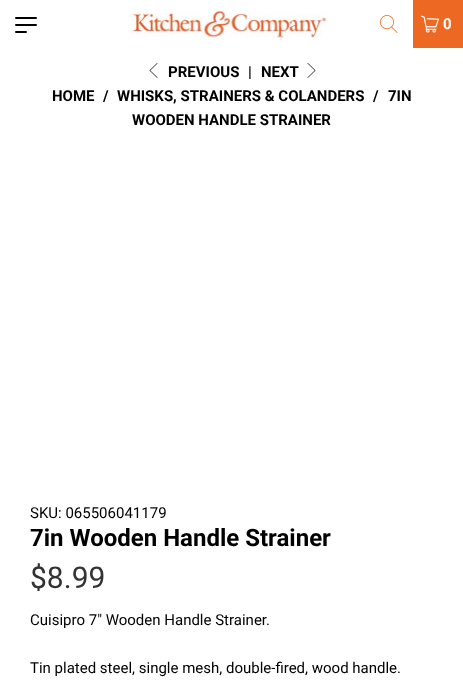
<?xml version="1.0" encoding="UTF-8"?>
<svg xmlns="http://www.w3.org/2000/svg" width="463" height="696">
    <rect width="100%" height="100%" fill="#FFFFFF"/>
    <rect x="15" y="17" width="22" height="2" rx="1" fill="#000000"/>
    <rect x="15" y="24" width="22" height="2" rx="1" fill="#000000"/>
    <rect x="15" y="31" width="12" height="2" rx="1" fill="#000000"/>
    <image x="130" y="5" width="199" height="33" href="img_01.png"/>
    <image x="380" y="15" width="18" height="18" href="img_02.png"/>
    <rect x="413" y="0" width="50" height="48" fill="#ED6923"/>
    <image x="421" y="15" width="18" height="18" href="img_03.png"/>
    <text x="443" y="29" font-family="Roboto" font-size="15" font-weight="700" letter-spacing="1" fill="#FFFFFF">0</text>
    <image x="149" y="63" width="9" height="15" href="img_04.png"/>
    <text x="168" y="77" font-family="Roboto" font-size="15" font-weight="700" fill="#000000">PREVIOUS</text>
    <text x="248" y="77" font-family="Roboto" font-size="15" font-weight="700" fill="#000000">|</text>
    <text x="261" y="77" font-family="Roboto" font-size="15" font-weight="700" fill="#000000">NEXT</text>
    <image x="307" y="63" width="9" height="15" href="img_05.png"/>
    <text x="52" y="101" font-family="Roboto" font-size="15" font-weight="700" fill="#000000">HOME</text>
    <text x="103" y="101" font-family="Roboto" font-size="15" font-weight="700" fill="#000000">/</text>
    <text x="117" y="101" font-family="Roboto" font-size="15" font-weight="700" fill="#000000">WHISKS, STRAINERS &amp; COLANDERS</text>
    <text x="373" y="101" font-family="Roboto" font-size="15" font-weight="700" fill="#000000">/</text>
    <text x="388" y="101" font-family="Roboto" font-size="15" font-weight="700" fill="#000000">7IN</text>
    <text x="132" y="125" font-family="Roboto" font-size="15" font-weight="700" fill="#000000">WOODEN HANDLE STRAINER</text>
    <text x="30" y="518" font-family="Roboto" font-size="15" fill="#000000">SKU: 065506041179</text>
    <text x="30" y="546" font-family="Roboto" font-size="24" font-weight="700" fill="#000000">7in Wooden Handle Strainer</text>
    <text x="30" y="588" font-family="Roboto" font-size="30" fill="#333333">$8.99</text>
    <text x="30" y="625" font-family="Roboto" font-size="15" fill="#000000">Cuisipro 7" Wooden Handle Strainer.</text>
    <text x="30" y="673" font-family="Roboto" font-size="15" fill="#000000">Tin plated steel, single mesh, double-fired, wood handle.</text>
</svg>
